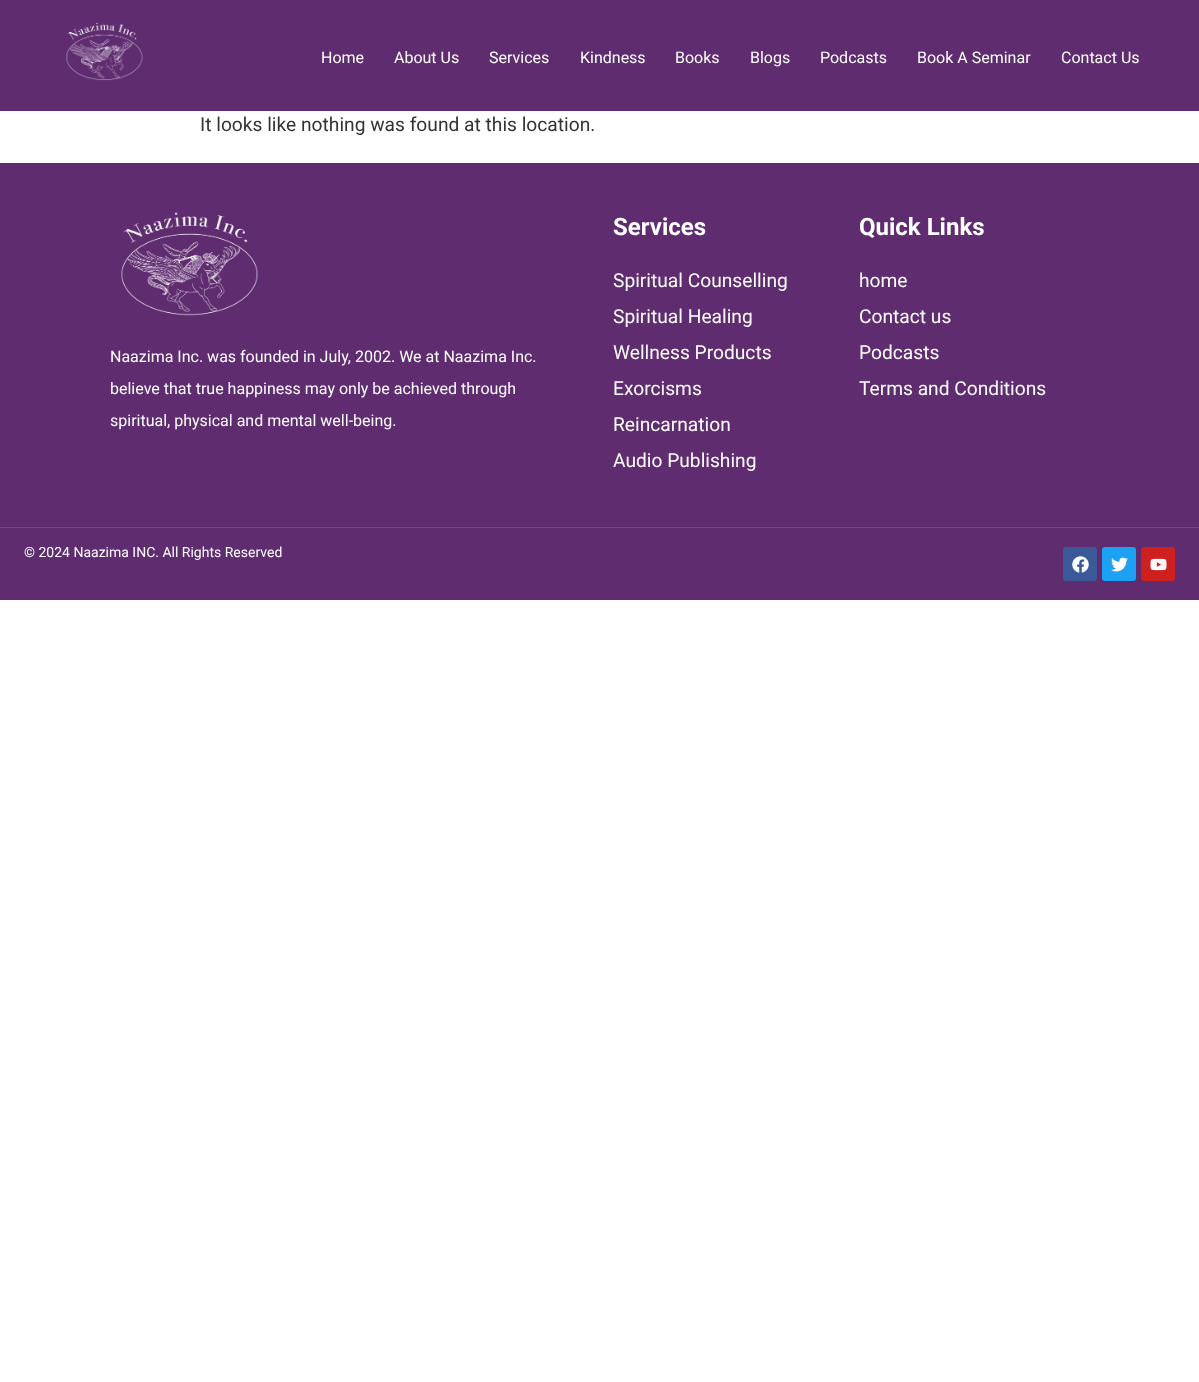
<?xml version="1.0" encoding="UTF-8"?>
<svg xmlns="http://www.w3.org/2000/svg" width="1199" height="1382">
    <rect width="100%" height="100%" fill="#FFFFFF"/>
    <rect x="0" y="0" width="1199" height="111" fill="#5F2C70"/>
    <image x="66" y="23" width="77" height="58" href="img_01.png"/>
    <text x="321" y="63" font-family="Roboto" font-size="16" fill="#FFFFFF">Home</text>
    <text x="394" y="63" font-family="Roboto" font-size="16" fill="#FFFFFF">About Us</text>
    <text x="489" y="63" font-family="Roboto" font-size="16" fill="#FFFFFF">Services</text>
    <text x="580" y="63" font-family="Roboto" font-size="16" fill="#FFFFFF">Kindness</text>
    <text x="675" y="63" font-family="Roboto" font-size="16" fill="#FFFFFF">Books</text>
    <text x="750" y="63" font-family="Roboto" font-size="16" fill="#FFFFFF">Blogs</text>
    <text x="820" y="63" font-family="Roboto" font-size="16" fill="#FFFFFF">Podcasts</text>
    <text x="917" y="63" font-family="Roboto" font-size="16" fill="#FFFFFF">Book A Seminar</text>
    <text x="1061" y="63" font-family="Roboto" font-size="16" fill="#FFFFFF">Contact Us</text>
    <text x="200" y="131" font-family="Roboto" font-size="19.2" fill="#333333">It looks like nothing was found at this location.</text>
    <rect x="0" y="163" width="1199" height="364" fill="#5F2C70"/>
    <image x="121" y="212" width="137" height="104" href="img_02.png"/>
    <text x="110" y="362" font-family="Roboto" font-size="16" fill="#FFFFFF">Naazima Inc. was founded in July, 2002. We at Naazima Inc.</text>
    <text x="110" y="394" font-family="Roboto" font-size="16" fill="#FFFFFF">believe that true happiness may only be achieved through</text>
    <text x="110" y="426" font-family="Roboto" font-size="16" fill="#FFFFFF">spiritual, physical and mental well-being.</text>
    <text x="613" y="235" font-family="Roboto" font-size="24" font-weight="700" fill="#FFFFFF">Services</text>
    <text font-family="Roboto" font-size="19.2" fill="#FFFFFF">
        <tspan x="613" y="287">Spiritual Counselling</tspan>
        <tspan x="613" y="323">Spiritual Healing</tspan>
        <tspan x="613" y="359">Wellness Products</tspan>
        <tspan x="613" y="395">Exorcisms</tspan>
        <tspan x="613" y="431">Reincarnation</tspan>
        <tspan x="613" y="467">Audio Publishing</tspan>
    </text>
    <text x="859" y="235" font-family="Roboto" font-size="24" font-weight="700" fill="#FFFFFF">Quick Links</text>
    <text font-family="Roboto" font-size="19.2" fill="#FFFFFF">
        <tspan x="859" y="287">home</tspan>
        <tspan x="859" y="323">Contact us</tspan>
        <tspan x="859" y="359">Podcasts</tspan>
        <tspan x="859" y="395">Terms and Conditions</tspan>
    </text>
    <rect x="0" y="528" width="1199" height="72" fill="#5F2C70"/>
    <rect x="0" y="527" width="1199" height="1" fill="#744783"/>
    <text x="24" y="557" font-family="Roboto" font-size="14" fill="#FFFFFF">© 2024 Naazima INC. All Rights Reserved</text>
    <rect x="1063" y="547" width="34" height="34" rx="3" fill="#3B5998"/>
    <image x="1072" y="556" width="17" height="17" href="img_03.png"/>
    <rect x="1102" y="547" width="34" height="34" rx="3" fill="#1DA1F2"/>
    <image x="1111" y="557" width="17" height="15" href="img_04.png"/>
    <rect x="1141" y="547" width="34" height="34" rx="3" fill="#CD201F"/>
    <image x="1150" y="558" width="17" height="13" href="img_05.png"/>
</svg>
